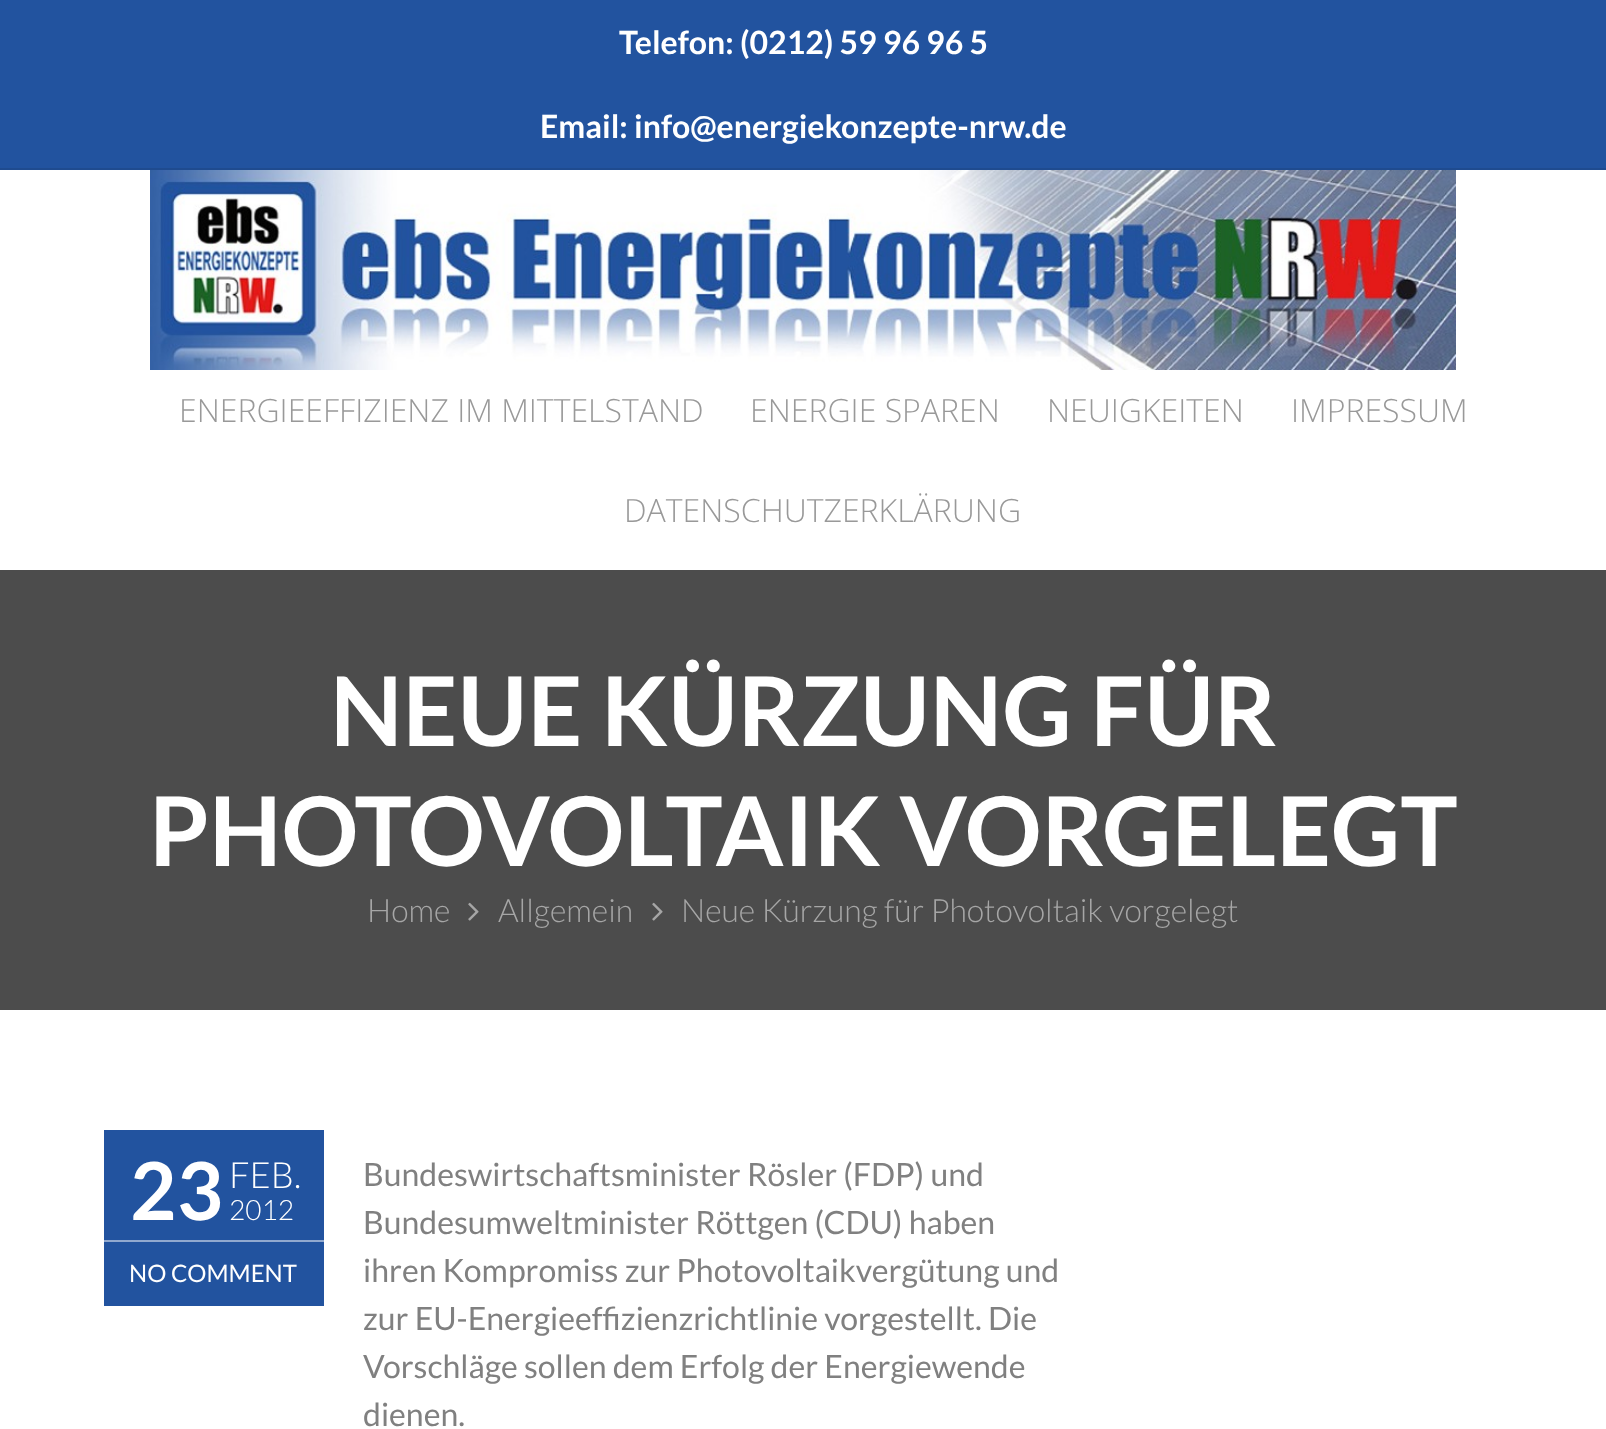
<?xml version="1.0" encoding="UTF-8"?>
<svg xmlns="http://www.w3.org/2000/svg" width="1606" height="1429">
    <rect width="100%" height="100%" fill="#FFFFFF"/>
    <rect x="0" y="0" width="1606" height="168" fill="#22539F"/>
    <rect x="0" y="168" width="1606" height="2" fill="#1F4B8F"/>
    <text x="619" y="54" font-family="Lato" font-size="32" font-weight="700" fill="#FFFFFF">Telefon: (0212) 59 96 96 5</text>
    <text x="540" y="138" font-family="Lato" font-size="32" font-weight="700" fill="#FFFFFF">Email: info@energiekonzepte-nrw.de</text>
    <image x="150" y="170" width="1306" height="200" href="img_01.png"/>
    <text x="179" y="422" font-family="Open Sans" font-size="32" font-weight="300" fill="#999999">ENERGIEEFFIZIENZ IM MITTELSTAND</text>
    <text x="750" y="422" font-family="Open Sans" font-size="32" font-weight="300" fill="#999999">ENERGIE SPAREN</text>
    <text x="1047" y="422" font-family="Open Sans" font-size="32" font-weight="300" fill="#999999">NEUIGKEITEN</text>
    <text x="1291" y="422" font-family="Open Sans" font-size="32" font-weight="300" fill="#999999">IMPRESSUM</text>
    <text x="624" y="522" font-family="Open Sans" font-size="32" font-weight="300" fill="#999999">DATENSCHUTZERKLÄRUNG</text>
    <rect x="0" y="570" width="1606" height="440" fill="#4C4C4C"/>
    <text x="330" y="746" font-family="Lato" font-size="96" font-weight="700" fill="#FFFFFF">NEUE KÜRZUNG FÜR</text>
    <text x="149" y="866" font-family="Lato" font-size="96" font-weight="700" fill="#FFFFFF">PHOTOVOLTAIK VORGELEGT</text>
    <text x="367" y="922" font-family="Lato" font-size="32" font-weight="300" fill="#A6A6A6">Home</text>
    <image x="468" y="902" width="11" height="19" href="img_02.png"/>
    <text x="498" y="922" font-family="Lato" font-size="32" font-weight="300" fill="#A6A6A6">Allgemein</text>
    <image x="652" y="902" width="11" height="19" href="img_02.png"/>
    <text x="681" y="922" font-family="Lato" font-size="32" font-weight="300" fill="#A6A6A6">Neue Kürzung für Photovoltaik vorgelegt</text>
    <rect x="104" y="1130" width="220" height="176" fill="#22539F"/>
    <rect x="104" y="1240" width="220" height="2" fill="#91A9CF"/>
    <text x="130" y="1220" font-family="Lato" font-size="80" font-weight="700" fill="#FFFFFF">23</text>
    <text x="229" y="1188" font-family="Lato" font-size="36" font-weight="300" fill="#FFFFFF">FEB.</text>
    <text x="229" y="1220" font-family="Lato" font-size="28" font-weight="300" fill="#FFFFFF">2012</text>
    <text x="129" y="1282" font-family="Lato" font-size="24" fill="#FFFFFF">NO COMMENT</text>
    <text font-family="Lato" font-size="32" fill="#808080">
        <tspan x="363" y="1186">Bundeswirtschaftsminister Rösler (FDP) und</tspan>
        <tspan x="363" y="1234">Bundesumweltminister Röttgen (CDU) haben</tspan>
        <tspan x="363" y="1282">ihren Kompromiss zur Photovoltaikvergütung und</tspan>
        <tspan x="363" y="1330">zur EU-Energieeffizienzrichtlinie vorgestellt. Die</tspan>
        <tspan x="363" y="1378">Vorschläge sollen dem Erfolg der Energiewende</tspan>
        <tspan x="363" y="1426">dienen.</tspan>
    </text>
</svg>
